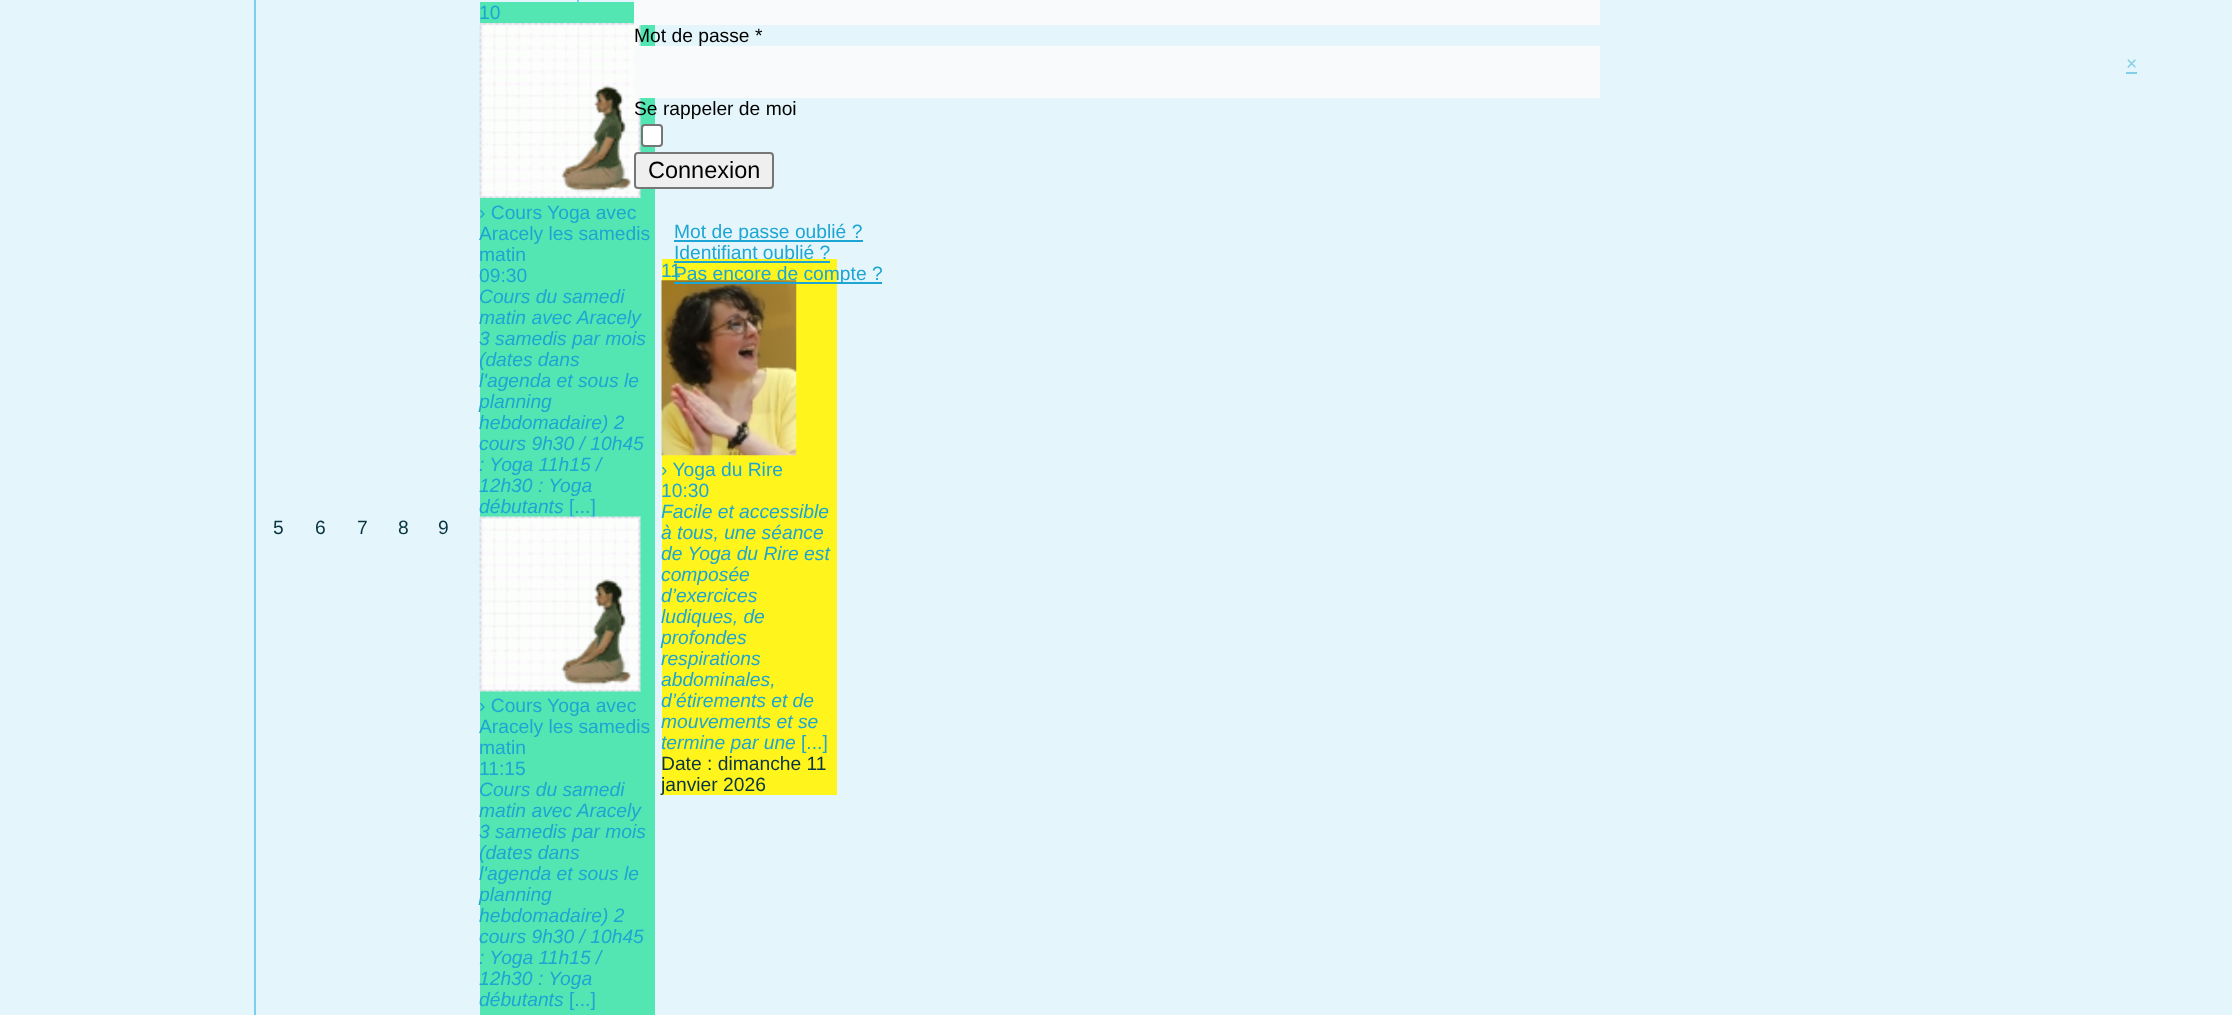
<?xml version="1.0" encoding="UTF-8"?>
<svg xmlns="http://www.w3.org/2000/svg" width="2232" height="1015">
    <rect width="100%" height="100%" fill="#E4F6FB"/>
    <rect x="255" y="-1" width="323" height="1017" fill="none" stroke="#78D0ED" stroke-width="2"/>
    <text x="273" y="534" font-family="Liberation Sans" font-size="19.25" fill="#093543">5</text>
    <text x="315" y="534" font-family="Liberation Sans" font-size="19.25" fill="#093543">6</text>
    <text x="357" y="534" font-family="Liberation Sans" font-size="19.25" fill="#093543">7</text>
    <text x="398" y="534" font-family="Liberation Sans" font-size="19.25" fill="#093543">8</text>
    <text x="438" y="534" font-family="Liberation Sans" font-size="19.25" fill="#093543">9</text>
    <rect x="480" y="2" width="175" height="1013" fill="#53E6B3"/>
    <text x="479" y="19" font-family="Liberation Sans" font-size="19.25" fill="#1DA5D3">10</text>
    <image x="479" y="23" width="162" height="175" href="img_01.png"/>
    <text font-family="Liberation Sans" font-size="19.25" fill="#1DA5D3">
        <tspan x="479" y="219">› Cours Yoga avec</tspan>
        <tspan x="479" y="240">Aracely les samedis</tspan>
        <tspan x="479" y="261">matin</tspan>
        <tspan x="479" y="282">09:30</tspan>
    </text>
    <text font-family="Liberation Sans" font-size="19.25" font-style="italic" fill="#1DA5D3">
        <tspan x="479" y="303">Cours du samedi</tspan>
        <tspan x="479" y="324">matin avec Aracely</tspan>
        <tspan x="479" y="345">3 samedis par mois</tspan>
        <tspan x="479" y="366">(dates dans</tspan>
        <tspan x="479" y="387">l'agenda et sous le</tspan>
        <tspan x="479" y="408">planning</tspan>
        <tspan x="479" y="429">hebdomadaire) 2</tspan>
        <tspan x="479" y="450">cours 9h30 / 10h45</tspan>
        <tspan x="479" y="471">: Yoga 11h15 /</tspan>
        <tspan x="479" y="492">12h30 : Yoga</tspan>
        <tspan x="479" y="513">débutants</tspan>
    </text>
    <text x="569" y="513" font-family="Liberation Sans" font-size="19.25" fill="#1DA5D3">[...]</text>
    <image x="479" y="516" width="162" height="176" href="img_02.png"/>
    <text font-family="Liberation Sans" font-size="19.25" fill="#1DA5D3">
        <tspan x="479" y="712">› Cours Yoga avec</tspan>
        <tspan x="479" y="733">Aracely les samedis</tspan>
        <tspan x="479" y="754">matin</tspan>
        <tspan x="479" y="775">11:15</tspan>
    </text>
    <text font-family="Liberation Sans" font-size="19.25" font-style="italic" fill="#1DA5D3">
        <tspan x="479" y="796">Cours du samedi</tspan>
        <tspan x="479" y="817">matin avec Aracely</tspan>
        <tspan x="479" y="838">3 samedis par mois</tspan>
        <tspan x="479" y="859">(dates dans</tspan>
        <tspan x="479" y="880">l'agenda et sous le</tspan>
        <tspan x="479" y="901">planning</tspan>
        <tspan x="479" y="922">hebdomadaire) 2</tspan>
        <tspan x="479" y="943">cours 9h30 / 10h45</tspan>
        <tspan x="479" y="964">: Yoga 11h15 /</tspan>
        <tspan x="479" y="985">12h30 : Yoga</tspan>
        <tspan x="479" y="1006">débutants</tspan>
    </text>
    <text x="569" y="1006" font-family="Liberation Sans" font-size="19.25" fill="#1DA5D3">[...]</text>
    <rect x="662" y="259" width="175" height="536" fill="#FFF41C"/>
    <text x="661" y="277" font-family="Liberation Sans" font-size="19.25" fill="#1DA5D3">11</text>
    <image x="661" y="280" width="136" height="176" href="img_03.png"/>
    <text font-family="Liberation Sans" font-size="19.25" fill="#1DA5D3">
        <tspan x="661" y="476">› Yoga du Rire</tspan>
        <tspan x="661" y="497">10:30</tspan>
    </text>
    <text font-family="Liberation Sans" font-size="19.25" font-style="italic" fill="#1DA5D3">
        <tspan x="661" y="518">Facile et accessible</tspan>
        <tspan x="661" y="539">à tous, une séance</tspan>
        <tspan x="661" y="560">de Yoga du Rire est</tspan>
        <tspan x="661" y="581">composée</tspan>
        <tspan x="661" y="602">d’exercices</tspan>
        <tspan x="661" y="623">ludiques, de</tspan>
        <tspan x="661" y="644">profondes</tspan>
        <tspan x="661" y="665">respirations</tspan>
        <tspan x="661" y="686">abdominales,</tspan>
        <tspan x="661" y="707">d’étirements et de</tspan>
        <tspan x="661" y="728">mouvements et se</tspan>
        <tspan x="661" y="749">termine par une</tspan>
    </text>
    <text x="801" y="749" font-family="Liberation Sans" font-size="19.25" fill="#1DA5D3">[...]</text>
    <text font-family="Liberation Sans" font-size="19.25" fill="#093543">
        <tspan x="661" y="770">Date : dimanche 11</tspan>
        <tspan x="661" y="791">janvier 2026</tspan>
    </text>
    <rect x="634" y="0" width="966" height="25" fill="#F9FAFB"/>
    <text x="634" y="42" font-family="Liberation Sans" font-size="19.25" fill="#000000">Mot de passe *</text>
    <rect x="634" y="46" width="966" height="52" fill="#F9FAFB"/>
    <text x="634" y="115" font-family="Liberation Sans" font-size="19.25" fill="#000000">Se rappeler de moi</text>
    <rect x="642" y="125" width="20" height="21" rx="3" fill="#FFFFFF" stroke="#767676" stroke-width="2"/>
    <rect x="635" y="153" width="138" height="35" rx="3" fill="#EFEFEF" stroke="#767676" stroke-width="2"/>
    <text x="648" y="178" font-family="Liberation Sans" font-size="23.5" fill="#000000">Connexion</text>
    <rect x="674" y="240" width="189" height="2" fill="#1DA5D3"/>
    <text font-family="Liberation Sans" font-size="19.25" fill="#1DA5D3">
        <tspan x="674" y="238">Mot de passe oublié ?</tspan>
        <tspan x="674" y="259">Identifiant oublié ?</tspan>
    </text>
    <rect x="674" y="261" width="156" height="2" fill="#1DA5D3"/>
    <rect x="674" y="282" width="208" height="2" fill="#1DA5D3"/>
    <text x="674" y="280" font-family="Liberation Sans" font-size="19.25" fill="#1DA5D3">Pas encore de compte ?</text>
    <text x="2126" y="70" font-family="Liberation Sans" font-size="19.25" fill="#81CEE7">×</text>
    <rect x="2126" y="72" width="11" height="2" fill="#81CEE7"/>
</svg>
